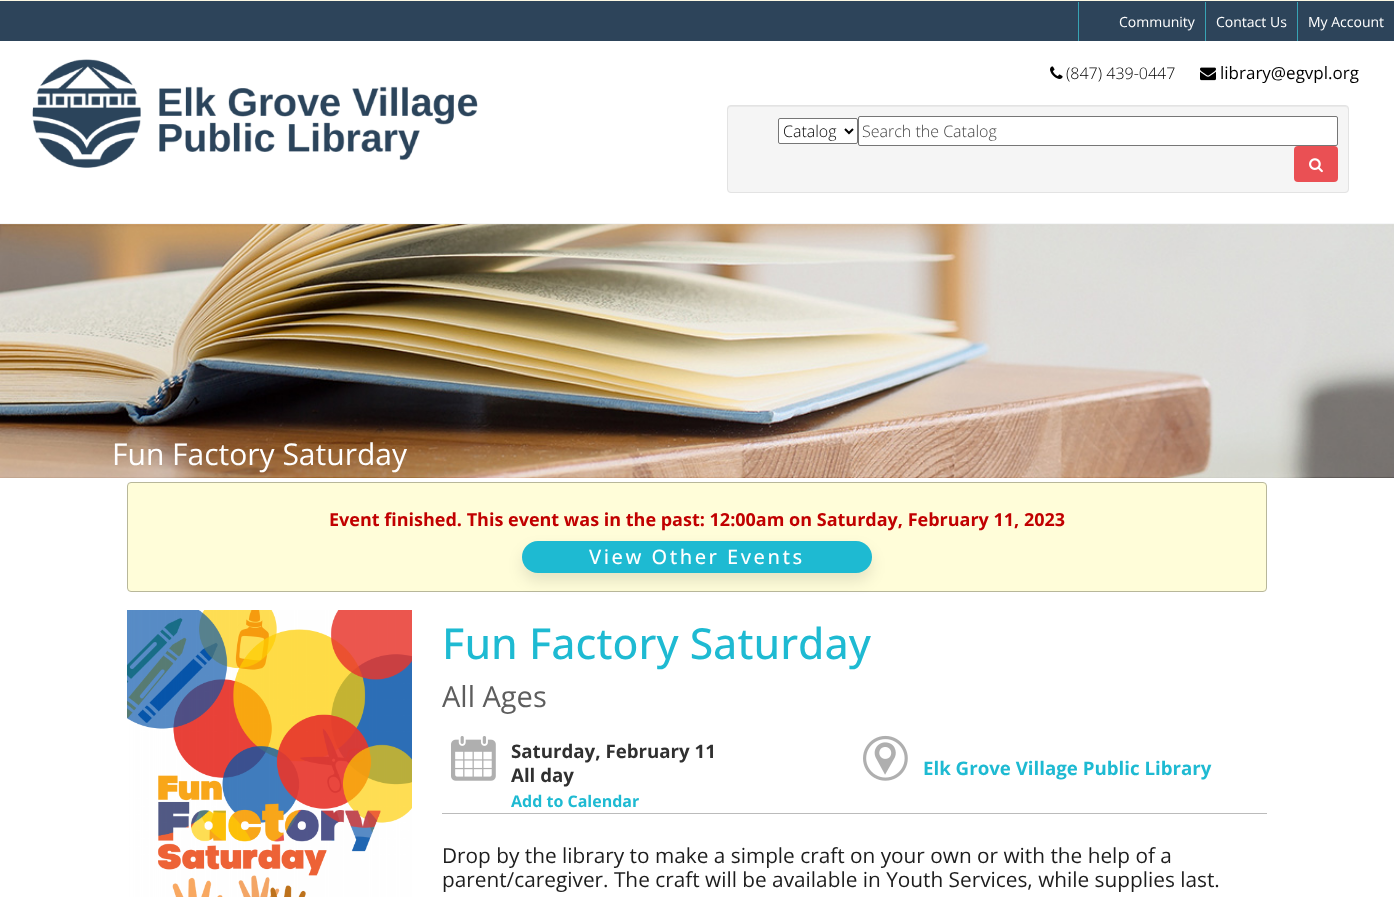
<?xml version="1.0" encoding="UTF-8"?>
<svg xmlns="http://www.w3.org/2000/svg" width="1394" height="897">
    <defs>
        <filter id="blur1" x="-50%" y="-200%" width="200%" height="500%"><feGaussianBlur stdDeviation="7.5"/></filter>
    </defs>
    <rect width="100%" height="100%" fill="#FFFFFF"/>
    <rect x="0" y="0" width="1394" height="1" fill="#FCF8E3"/>
    <rect x="0" y="1" width="1394" height="40" fill="#2D445A"/>
    <rect x="1078" y="2" width="1" height="39" fill="#37A4B5"/>
    <text x="1119" y="27" font-family="Open Sans" font-size="14" fill="#FFFFFF">Community</text>
    <rect x="1205" y="2" width="1" height="39" fill="#37A4B5"/>
    <text x="1216" y="27" font-family="Open Sans" font-size="14" fill="#FFFFFF">Contact Us</text>
    <rect x="1297" y="2" width="1" height="39" fill="#37A4B5"/>
    <text x="1308" y="27" font-family="Open Sans" font-size="14" fill="#FFFFFF">My Account</text>
    <image x="32" y="59" width="446" height="109" href="img_01.png"/>
    <image x="1050" y="66" width="13" height="13" href="img_02.png"/>
    <text x="1066" y="79" font-family="Open Sans" font-size="16" font-weight="300" fill="#000000">(847) 439-0447</text>
    <image x="1200" y="67" width="16" height="14" href="img_03.png"/>
    <text x="1220" y="79" font-family="Open Sans" font-size="17" fill="#000000">library@egvpl.org</text>
    <rect x="727" y="105" width="622" height="88" rx="4" fill="#F5F5F5"/>
    <path d="M 731 107 H 1345 C 1347 107 1348 108 1348 110 V 109 C 1348 107 1347 106 1345 106 H 731 C 729 106 728 107 728 109 V 110 C 728 108 729 107 731 107 Z" fill="#E9E9E9"/>
    <rect x="727.5" y="105.5" width="621" height="87" rx="3.5" fill="none" stroke="#E3E3E3"/>
    <rect x="778.5" y="118.5" width="79" height="25" rx="1.5" fill="#FFFFFF" stroke="#767676"/>
    <path d="M 845 129 L 849 133 L 853 129" fill="none" stroke="#000000" stroke-width="2"/>
    <text x="783" y="137" font-family="Open Sans" font-size="16" font-weight="300" fill="#000000">Catalog</text>
    <rect x="858.5" y="116.5" width="479" height="29" rx="1.5" fill="#FFFFFF" stroke="#767676"/>
    <text x="862" y="137" font-family="Open Sans" font-size="16" font-weight="300" fill="#444444">Search the Catalog</text>
    <rect x="1294" y="146" width="44" height="36" rx="4" fill="#EA5054"/>
    <image x="1309" y="158" width="14" height="15" href="img_04.png"/>
    <rect x="0" y="223" width="1394" height="1" fill="#F6F7F8"/>
    <image x="0" y="224" width="1394" height="254" href="img_05.png"/>
    <text x="112" y="465" font-family="Open Sans" font-size="30" fill="#FFFFFF">Fun Factory Saturday</text>
    <rect x="127.5" y="482.5" width="1139" height="109" rx="3.5" fill="#FFFDD9" stroke="#B8B79A"/>
    <text x="329" y="526" font-family="Open Sans" font-size="18" font-weight="700" fill="#C10000">Event finished. This event was in the past: 12:00am on Saturday, February 11, 2023</text>
    <rect x="522" y="549" width="350" height="32" rx="16" fill="#000000" fill-opacity="0.1" filter="url(#blur1)"/>
    <rect x="522" y="541" width="350" height="32" rx="16" fill="#1EBAD2"/>
    <text x="589" y="564" font-family="Open Sans" font-size="20" font-weight="500" letter-spacing="2.5" fill="#FFFFFF">View Other Events</text>
    <image x="127" y="610" width="285" height="287" href="img_06.png"/>
    <text x="442" y="659" font-family="Open Sans" font-size="42.75" font-weight="500" fill="#1EBAD2">Fun Factory Saturday</text>
    <text x="442" y="707" font-family="Open Sans" font-size="29" fill="#5D5D5D">All Ages</text>
    <image x="451" y="736" width="45" height="45" href="img_07.png"/>
    <text font-family="Open Sans" font-size="18.7" font-weight="700" fill="#303030">
        <tspan x="511" y="758">Saturday, February 11</tspan>
        <tspan x="511" y="782">All day</tspan>
    </text>
    <text x="511" y="807" font-family="Open Sans" font-size="16" font-weight="700" fill="#1EBAD2">Add to Calendar</text>
    <image x="863" y="735" width="45" height="46" href="img_08.png"/>
    <text x="923" y="775" font-family="Open Sans" font-size="18.7" font-weight="700" fill="#1EBAD2">Elk Grove Village Public Library</text>
    <rect x="442" y="813" width="825" height="1" fill="#BBBBBB"/>
    <text font-family="Open Sans" font-size="20.8" fill="#1D1D1D">
        <tspan x="442" y="863">Drop by the library to make a simple craft on your own or with the help of a</tspan>
        <tspan x="442" y="887">parent/caregiver. The craft will be available in Youth Services, while supplies last.</tspan>
    </text>
</svg>
